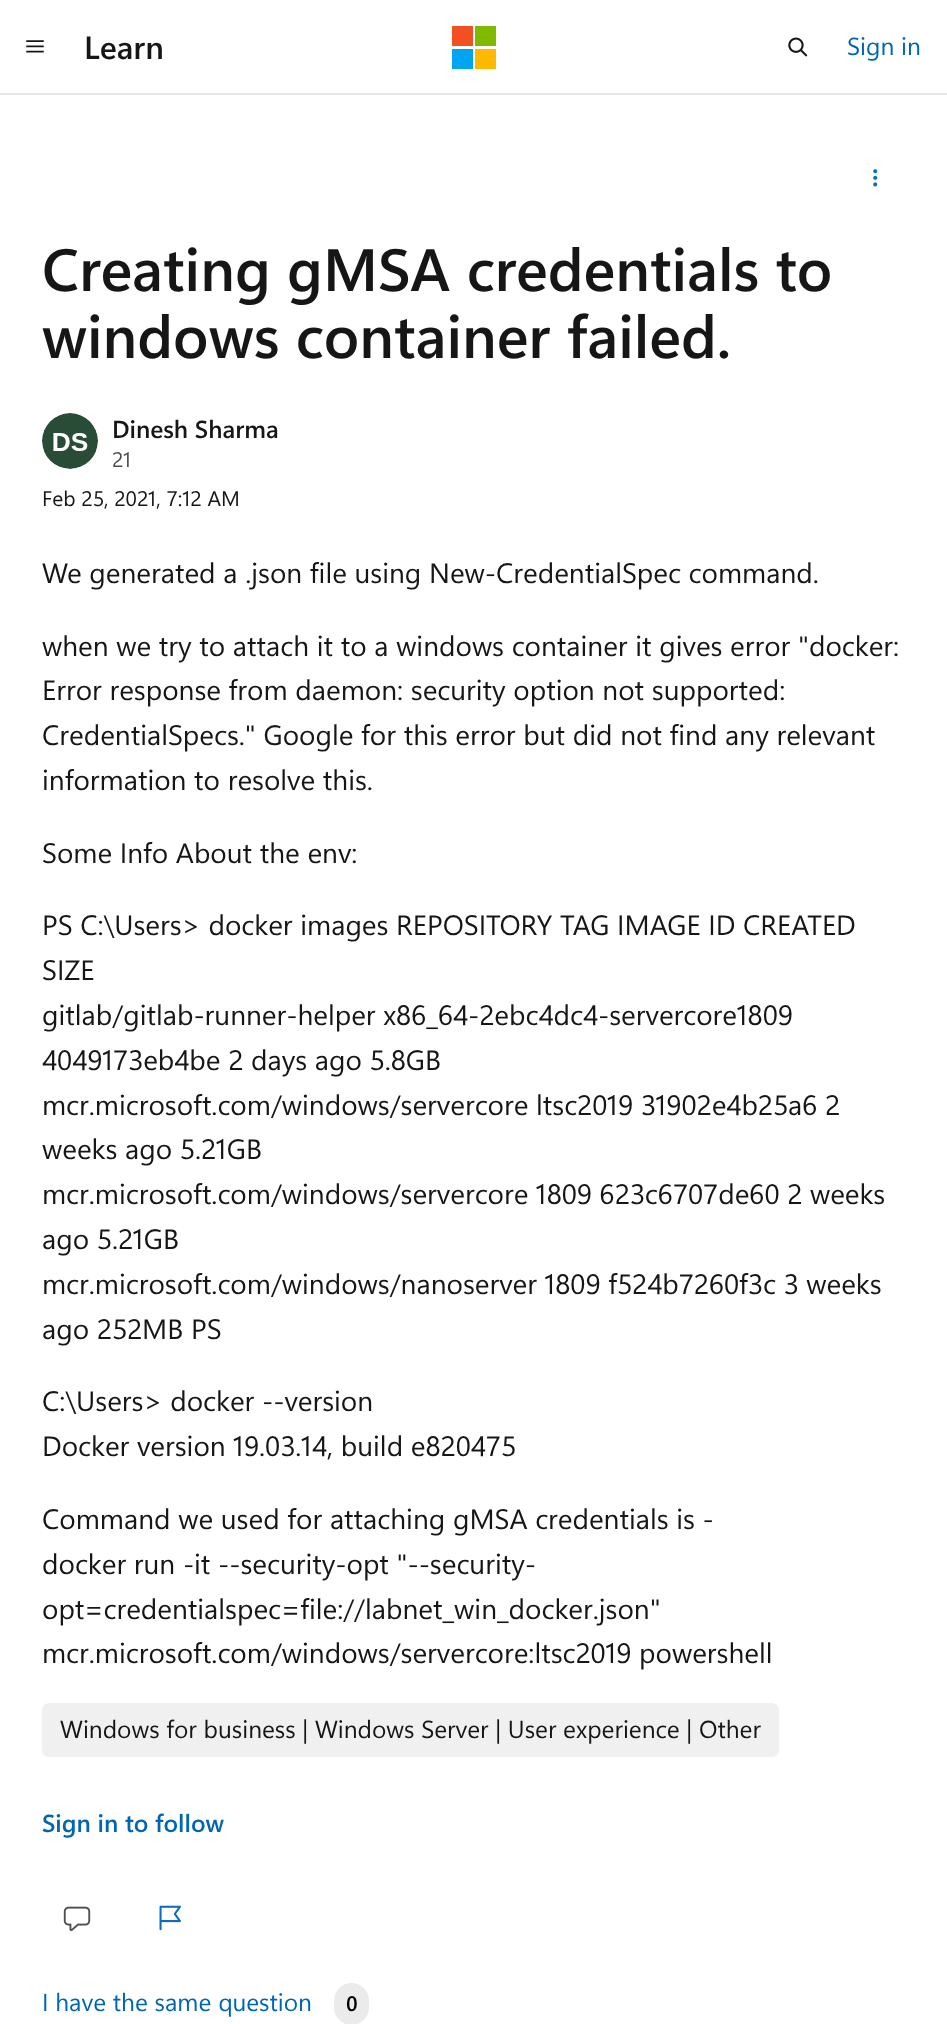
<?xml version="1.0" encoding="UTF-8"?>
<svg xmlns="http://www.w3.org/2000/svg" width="947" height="2024">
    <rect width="100%" height="100%" fill="#FFFFFF"/>
    <rect x="0" y="93" width="947" height="2" fill="#E6E6E6"/>
    <image x="26" y="40" width="18" height="13" href="img_01.png"/>
    <text x="84" y="59" font-family="Segoe UI" font-size="32" font-weight="600" fill="#161616">Learn</text>
    <rect x="452" y="26" width="21" height="20" fill="#F25022"/>
    <rect x="475" y="26" width="21" height="20" fill="#7FBA00"/>
    <rect x="452" y="49" width="21" height="20" fill="#00A4EF"/>
    <rect x="475" y="49" width="21" height="20" fill="#FFB900"/>
    <image x="788" y="37" width="20" height="20" href="img_02.png"/>
    <text x="847" y="55" font-family="Segoe UI" font-size="24.5" fill="#0065B3">Sign in</text>
    <image x="873" y="169" width="5" height="18" href="img_03.png"/>
    <text font-family="Segoe UI" font-size="59.5" font-weight="600" fill="#161616">
        <tspan x="42" y="291">Creating gMSA credentials to</tspan>
        <tspan x="42" y="358">windows container failed.</tspan>
    </text>
    <circle cx="70" cy="441" r="28" fill="#F2F2F2"/>
    <image x="42" y="413" width="56" height="56" href="img_04.png"/>
    <text x="112" y="438" font-family="Segoe UI" font-size="24.5" font-weight="600" fill="#161616">Dinesh Sharma</text>
    <text x="112" y="467" font-family="Segoe UI" font-size="21" fill="#505050">21</text>
    <text x="42" y="506" font-family="Segoe UI" font-size="21" fill="#161616">Feb 25, 2021, 7:12 AM</text>
    <text x="42" y="583" font-family="Segoe UI" font-size="28" fill="#161616">We generated a .json file using New-CredentialSpec command.</text>
    <text font-family="Segoe UI" font-size="28" fill="#161616">
        <tspan x="42" y="656">when we try to attach it to a windows container it gives error "docker:</tspan>
        <tspan x="42" y="700">Error response from daemon: security option not supported:</tspan>
        <tspan x="42" y="745">CredentialSpecs." Google for this error but did not find any relevant</tspan>
        <tspan x="42" y="790">information to resolve this.</tspan>
    </text>
    <text x="42" y="863" font-family="Segoe UI" font-size="28" fill="#161616">Some Info About the env:</text>
    <text font-family="Segoe UI" font-size="28" fill="#161616">
        <tspan x="42" y="935">PS C:\Users&gt; docker images REPOSITORY TAG IMAGE ID CREATED</tspan>
        <tspan x="42" y="980">SIZE</tspan>
        <tspan x="42" y="1025">gitlab/gitlab-runner-helper x86_64-2ebc4dc4-servercore1809</tspan>
        <tspan x="42" y="1070">4049173eb4be 2 days ago 5.8GB</tspan>
        <tspan x="42" y="1115">mcr.microsoft.com/windows/servercore ltsc2019 31902e4b25a6 2</tspan>
        <tspan x="42" y="1159">weeks ago 5.21GB</tspan>
        <tspan x="42" y="1204">mcr.microsoft.com/windows/servercore 1809 623c6707de60 2 weeks</tspan>
        <tspan x="42" y="1249">ago 5.21GB</tspan>
        <tspan x="42" y="1294">mcr.microsoft.com/windows/nanoserver 1809 f524b7260f3c 3 weeks</tspan>
        <tspan x="42" y="1339">ago 252MB PS</tspan>
    </text>
    <text font-family="Segoe UI" font-size="28" fill="#161616">
        <tspan x="42" y="1411">C:\Users&gt; docker --version</tspan>
        <tspan x="42" y="1456">Docker version 19.03.14, build e820475</tspan>
    </text>
    <text font-family="Segoe UI" font-size="28" fill="#161616">
        <tspan x="42" y="1529">Command we used for attaching gMSA credentials is -</tspan>
        <tspan x="42" y="1574">docker run -it --security-opt "--security-</tspan>
        <tspan x="42" y="1619">opt=credentialspec=file://labnet_win_docker.json"</tspan>
        <tspan x="42" y="1663">mcr.microsoft.com/windows/servercore:ltsc2019 powershell</tspan>
    </text>
    <rect x="43" y="1704" width="735" height="52" rx="6" fill="#F0F0F0" stroke="#F0F0F0" stroke-width="2"/>
    <text x="60" y="1738" font-family="Segoe UI" font-size="24.5" fill="#161616">Windows for business | Windows Server | User experience | Other</text>
    <text x="42" y="1832" font-family="Segoe UI" font-size="24.5" font-weight="600" fill="#0065B3">Sign in to follow</text>
    <image x="63" y="1906" width="28" height="26" href="img_05.png"/>
    <image x="159" y="1905" width="22" height="26" href="img_06.png"/>
    <text x="42" y="2011" font-family="Segoe UI" font-size="24.5" fill="#0065B3">I have the same question</text>
    <rect x="335" y="1984" width="33" height="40" rx="16.5" fill="#EBEBEB" stroke="#EBEBEB" stroke-width="2"/>
    <text x="346" y="2011" font-family="Segoe UI" font-size="21" font-weight="600" fill="#000000">0</text>
</svg>
